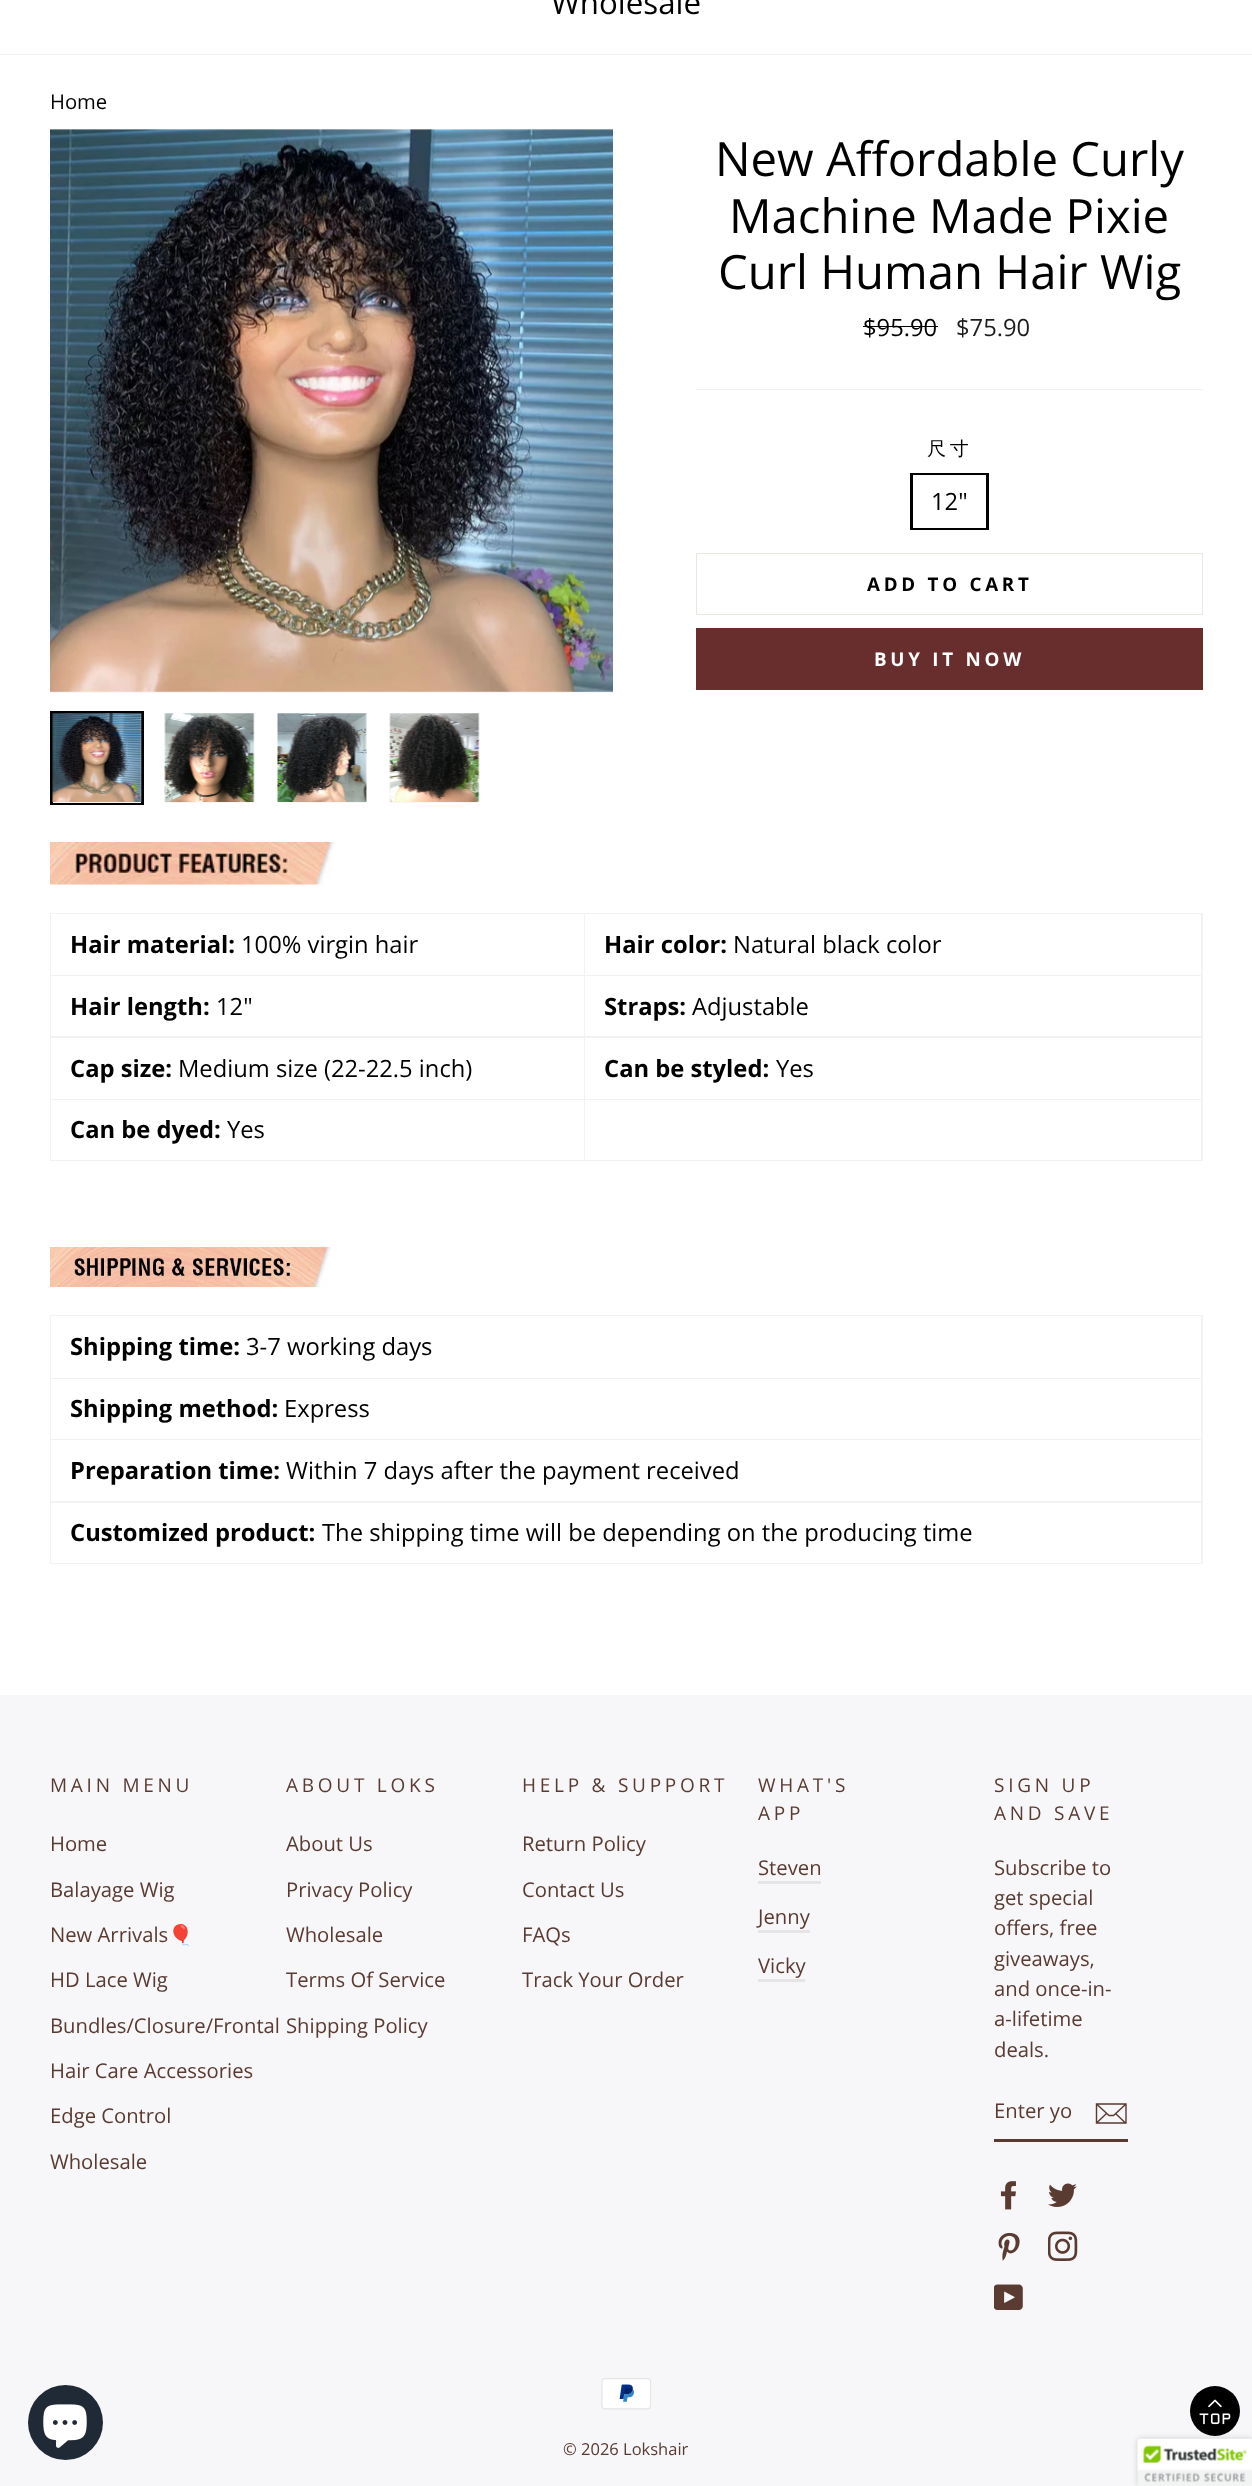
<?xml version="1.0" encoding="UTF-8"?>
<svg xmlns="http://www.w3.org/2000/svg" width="1252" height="2486">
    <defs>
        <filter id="blur1" x="-50%" y="-200%" width="200%" height="500%"><feGaussianBlur stdDeviation="3"/></filter>
    </defs>
    <rect width="100%" height="100%" fill="#FFFFFF"/>
    <rect x="0" y="54" width="1252" height="1" fill="#F2F2F2"/>
    <text x="551" y="14" font-family="Open Sans" font-size="31.25" fill="#000000">Wholesale</text>
    <text x="50" y="109" font-family="Open Sans" font-size="20.25" fill="#000000">Home</text>
    <rect x="50" y="130" width="563" height="563" fill="#F7F7F9"/>
    <image x="50" y="129" width="563" height="563" href="img_01.png"/>
    <rect x="51.5" y="712.5" width="91" height="91" fill="none" stroke="#000000" stroke-width="3"/>
    <rect x="53" y="714" width="88" height="89" fill="#F7F7F9"/>
    <image x="52" y="713" width="90" height="89" href="img_02.png"/>
    <rect x="165" y="714" width="89" height="89" fill="#F7F7F9"/>
    <image x="164" y="713" width="91" height="89" href="img_03.png"/>
    <rect x="278" y="714" width="88" height="89" fill="#F7F7F9"/>
    <image x="277" y="713" width="90" height="89" href="img_04.png"/>
    <rect x="390" y="714" width="89" height="89" fill="#F7F7F9"/>
    <image x="389" y="713" width="91" height="89" href="img_05.png"/>
    <text x="715" y="176" font-family="Open Sans" font-size="47.25" fill="#000000">New Affordable Curly</text>
    <text x="729" y="233" font-family="Open Sans" font-size="47.25" fill="#000000">Machine Made Pixie</text>
    <text x="718" y="289" font-family="Open Sans" font-size="47.25" fill="#000000">Curl Human Hair Wig</text>
    <text x="863" y="336" font-family="Open Sans" font-size="23.75" fill="#000000">$95.90</text>
    <rect x="863" y="326" width="75" height="1" fill="#000000"/>
    <text x="956" y="336" font-family="Open Sans" font-size="23.75" fill="#1C1D1D">$75.90</text>
    <rect x="696" y="389" width="507" height="1" fill="#F2F2F2"/>
    <text x="927" y="455" font-family="WenQuanYi Zen Hei" font-size="19" font-weight="500" letter-spacing="3.75" fill="#000000">尺寸</text>
    <rect x="911.5" y="474.5" width="76" height="54" fill="none" stroke="#000000" stroke-width="3"/>
    <rect x="913" y="475" width="73" height="53" fill="#FFFFFF"/>
    <text x="931" y="510" font-family="Open Sans" font-size="23.75" fill="#000000">12"</text>
    <rect x="696.5" y="553.5" width="506" height="61" fill="none" stroke="#E8E8E1"/>
    <text x="867" y="591" font-family="Open Sans" font-size="18.75" font-weight="700" letter-spacing="3.75" fill="#000000">ADD TO CART</text>
    <rect x="696" y="628" width="507" height="62" fill="#682D2D"/>
    <text x="874" y="666" font-family="Open Sans" font-size="18.75" font-weight="700" letter-spacing="3.75" fill="#FFFFFF">BUY IT NOW</text>
    <image x="50" y="842" width="285" height="43" href="img_06.png"/>
    <rect x="50" y="913" width="1153" height="248" fill="#F2F2F2"/>
    <rect x="51" y="914" width="533" height="61" fill="#FFFFFF"/>
    <text x="70" y="953" font-family="Open Sans" font-size="23.75" font-weight="700" fill="#000000">Hair material:</text>
    <text x="241" y="953" font-family="Open Sans" font-size="23.75" fill="#000000">100% virgin hair</text>
    <rect x="585" y="914" width="616" height="61" fill="#FFFFFF"/>
    <text x="604" y="953" font-family="Open Sans" font-size="23.75" font-weight="700" fill="#000000">Hair color:</text>
    <text x="733" y="953" font-family="Open Sans" font-size="23.75" fill="#000000">Natural black color</text>
    <rect x="51" y="976" width="533" height="60" fill="#FFFFFF"/>
    <text x="70" y="1015" font-family="Open Sans" font-size="23.75" font-weight="700" fill="#000000">Hair length:</text>
    <text x="216" y="1015" font-family="Open Sans" font-size="23.75" fill="#000000">12"</text>
    <rect x="585" y="976" width="616" height="60" fill="#FFFFFF"/>
    <text x="604" y="1015" font-family="Open Sans" font-size="23.75" font-weight="700" fill="#000000">Straps:</text>
    <text x="692" y="1015" font-family="Open Sans" font-size="23.75" fill="#000000">Adjustable</text>
    <rect x="51" y="1038" width="533" height="61" fill="#FFFFFF"/>
    <text x="70" y="1077" font-family="Open Sans" font-size="23.75" font-weight="700" fill="#000000">Cap size:</text>
    <text x="178" y="1077" font-family="Open Sans" font-size="23.75" fill="#000000">Medium size (22-22.5 inch)</text>
    <rect x="585" y="1038" width="616" height="61" fill="#FFFFFF"/>
    <text x="604" y="1077" font-family="Open Sans" font-size="23.75" font-weight="700" fill="#000000">Can be styled:</text>
    <text x="776" y="1077" font-family="Open Sans" font-size="23.75" fill="#000000">Yes</text>
    <rect x="51" y="1100" width="533" height="60" fill="#FFFFFF"/>
    <text x="70" y="1138" font-family="Open Sans" font-size="23.75" font-weight="700" fill="#000000">Can be dyed:</text>
    <text x="227" y="1138" font-family="Open Sans" font-size="23.75" fill="#000000">Yes</text>
    <rect x="585" y="1100" width="616" height="60" fill="#FFFFFF"/>
    <image x="50" y="1247" width="282" height="40" href="img_07.png"/>
    <rect x="50" y="1315" width="1153" height="249" fill="#F2F2F2"/>
    <rect x="51" y="1316" width="1150" height="62" fill="#FFFFFF"/>
    <text x="70" y="1355" font-family="Open Sans" font-size="23.75" font-weight="700" fill="#000000">Shipping time:</text>
    <text x="246" y="1355" font-family="Open Sans" font-size="23.75" fill="#000000">3-7 working days</text>
    <rect x="51" y="1379" width="1150" height="60" fill="#FFFFFF"/>
    <text x="70" y="1417" font-family="Open Sans" font-size="23.75" font-weight="700" fill="#000000">Shipping method:</text>
    <text x="284" y="1417" font-family="Open Sans" font-size="23.75" fill="#000000">Express</text>
    <rect x="51" y="1440" width="1150" height="61" fill="#FFFFFF"/>
    <text x="70" y="1479" font-family="Open Sans" font-size="23.75" font-weight="700" fill="#000000">Preparation time:</text>
    <text x="286" y="1479" font-family="Open Sans" font-size="23.75" fill="#000000">Within 7 days after the payment received</text>
    <rect x="51" y="1503" width="1150" height="60" fill="#FFFFFF"/>
    <text x="70" y="1541" font-family="Open Sans" font-size="23.75" font-weight="700" fill="#000000">Customized product:</text>
    <text x="322" y="1541" font-family="Open Sans" font-size="23.75" fill="#000000">The shipping time will be depending on the producing time</text>
    <rect x="0" y="1695" width="1252" height="791" fill="#F7F7F9"/>
    <text x="50" y="1792" font-family="Open Sans" font-size="19" letter-spacing="3.75" fill="#593B32">MAIN MENU</text>
    <text x="50" y="1851" font-family="Open Sans" font-size="20.25" fill="#593B32">Home</text>
    <text x="50" y="1897" font-family="Open Sans" font-size="20.25" fill="#593B32">Balayage Wig</text>
    <text x="50" y="1942" font-family="Open Sans" font-size="20.25" fill="#593B32">New Arrivals</text>
    <text x="168" y="1942" font-family="Noto Color Emoji" font-size="20.25" fill="#593B32">🎈</text>
    <text x="50" y="1987" font-family="Open Sans" font-size="20.25" fill="#593B32">HD Lace Wig</text>
    <text x="50" y="2033" font-family="Open Sans" font-size="20.25" fill="#593B32">Bundles/Closure/Frontal</text>
    <text x="50" y="2078" font-family="Open Sans" font-size="20.25" fill="#593B32">Hair Care Accessories</text>
    <text x="50" y="2123" font-family="Open Sans" font-size="20.25" fill="#593B32">Edge Control</text>
    <text x="50" y="2169" font-family="Open Sans" font-size="20.25" fill="#593B32">Wholesale</text>
    <text x="286" y="1792" font-family="Open Sans" font-size="19" letter-spacing="3.75" fill="#593B32">ABOUT LOKS</text>
    <text x="286" y="1851" font-family="Open Sans" font-size="20.25" fill="#593B32">About Us</text>
    <text x="286" y="1897" font-family="Open Sans" font-size="20.25" fill="#593B32">Privacy Policy</text>
    <text x="286" y="1942" font-family="Open Sans" font-size="20.25" fill="#593B32">Wholesale</text>
    <text x="286" y="1987" font-family="Open Sans" font-size="20.25" fill="#593B32">Terms Of Service</text>
    <text x="286" y="2033" font-family="Open Sans" font-size="20.25" fill="#593B32">Shipping Policy</text>
    <text x="522" y="1792" font-family="Open Sans" font-size="19" letter-spacing="3.75" fill="#593B32">HELP &amp; SUPPORT</text>
    <text x="522" y="1851" font-family="Open Sans" font-size="20.25" fill="#593B32">Return Policy</text>
    <text x="522" y="1897" font-family="Open Sans" font-size="20.25" fill="#593B32">Contact Us</text>
    <text x="522" y="1942" font-family="Open Sans" font-size="20.25" fill="#593B32">FAQs</text>
    <text x="522" y="1987" font-family="Open Sans" font-size="20.25" fill="#593B32">Track Your Order</text>
    <text font-family="Open Sans" font-size="19" letter-spacing="3.75" fill="#593B32">
        <tspan x="758" y="1792">WHAT'S</tspan>
        <tspan x="758" y="1820">APP</tspan>
    </text>
    <text x="758" y="1875" font-family="Open Sans" font-size="20.25" fill="#593B32">Steven</text>
    <rect x="758" y="1881" width="63" height="3" fill="#E7E4E5"/>
    <text x="758" y="1924" font-family="Open Sans" font-size="20.25" fill="#593B32">Jenny</text>
    <rect x="758" y="1930" width="52" height="3" fill="#E7E4E5"/>
    <text x="758" y="1973" font-family="Open Sans" font-size="20.25" fill="#593B32">Vicky</text>
    <rect x="758" y="1979" width="47" height="3" fill="#E7E4E5"/>
    <text font-family="Open Sans" font-size="19" letter-spacing="3.75" fill="#593B32">
        <tspan x="994" y="1792">SIGN UP</tspan>
        <tspan x="994" y="1820">AND SAVE</tspan>
    </text>
    <text font-family="Open Sans" font-size="20.25" fill="#593B32">
        <tspan x="994" y="1875">Subscribe to</tspan>
        <tspan x="994" y="1905">get special</tspan>
        <tspan x="994" y="1935">offers, free</tspan>
        <tspan x="994" y="1966">giveaways,</tspan>
        <tspan x="994" y="1996">and once-in-</tspan>
        <tspan x="994" y="2026">a-lifetime</tspan>
        <tspan x="994" y="2057">deals.</tspan>
    </text>
    <rect x="994" y="2139" width="134" height="3" fill="#593B32"/>
    <text x="994" y="2118" font-family="Open Sans" font-size="20.25" fill="#593B32">Enter yo</text>
    <path d="M 1126 2123 H 1096.5 V 2104 H 1126 Z M 1096.5 2104 L 1109 2115.5 H 1113.5 L 1126 2104 M 1106.5 2113.5 L 1097 2122.5 M 1125.5 2123 L 1115.5 2113.5" fill="none" stroke="#593B32" stroke-width="1.4"/>
    <image x="1000" y="2181" width="16" height="29" href="img_08.png"/>
    <image x="1048" y="2183" width="29" height="24" href="img_09.png"/>
    <image x="998" y="2232" width="22" height="29" href="img_10.png"/>
    <image x="1048" y="2231" width="30" height="30" href="img_11.png"/>
    <image x="994" y="2284" width="29" height="26" href="img_12.png"/>
    <image x="601" y="2378" width="50" height="32" href="img_13.png"/>
    <text x="563" y="2455" font-family="Open Sans" font-size="16.5" fill="#593B32">© 2026 Lokshair</text>
    <circle cx="65.5" cy="2422.5" r="37.5" fill="#202A36"/>
    <image x="43" y="2404" width="44" height="44" href="img_14.png"/>
    <circle cx="1215" cy="2411" r="25" fill="#000000"/>
    <image x="1199" y="2399" width="32" height="26" href="img_15.png"/>
    <rect x="1138" y="2439" width="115" height="47" rx="2.5" fill="#000000" fill-opacity="0.2" filter="url(#blur1)"/>
    <path d="M 1140.5 2439 H 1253 V 2486 H 1138 V 2441.5 C 1138 2440 1139 2439 1140.5 2439 Z" fill="#FFFFFF"/>
    <image x="1137" y="2438" width="115" height="48" href="img_16.png"/>
</svg>
